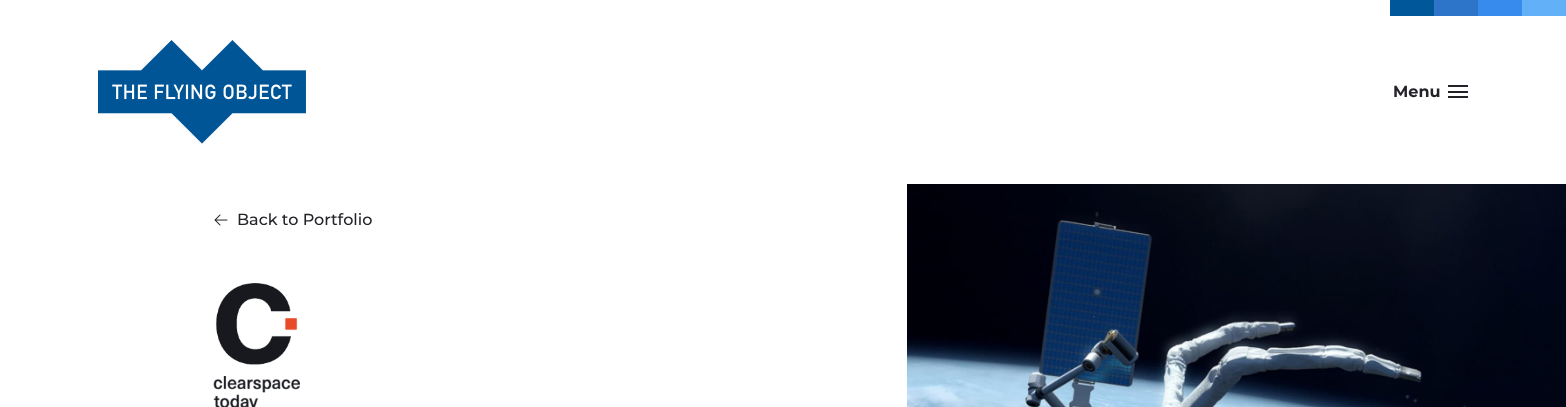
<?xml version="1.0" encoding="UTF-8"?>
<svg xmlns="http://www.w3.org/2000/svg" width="1566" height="407">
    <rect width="100%" height="100%" fill="#FFFFFF"/>
    <rect x="1390" y="0" width="44" height="16" fill="#005799"/>
    <rect x="1434" y="0" width="44" height="16" fill="#2D75C8"/>
    <rect x="1478" y="0" width="44" height="16" fill="#368BEC"/>
    <rect x="1522" y="0" width="44" height="16" fill="#62B0F8"/>
    <image x="98" y="40" width="208" height="104" href="img_01.png"/>
    <text x="1393" y="97" font-family="Montserrat" font-size="16" font-weight="700" fill="#242228">Menu</text>
    <rect x="1448" y="85" width="20" height="2" fill="#242228"/>
    <rect x="1448" y="91" width="20" height="2" fill="#242228"/>
    <rect x="1448" y="96" width="20" height="2" fill="#242228"/>
    <image x="214" y="214" width="14" height="12" href="img_02.png"/>
    <text x="237" y="225" font-family="Montserrat" font-size="16" font-weight="500" fill="#242228">Back to Portfolio</text>
    <image x="213" y="283" width="87" height="124" href="img_03.png"/>
    <image x="907" y="184" width="659" height="223" href="img_04.png"/>
</svg>
